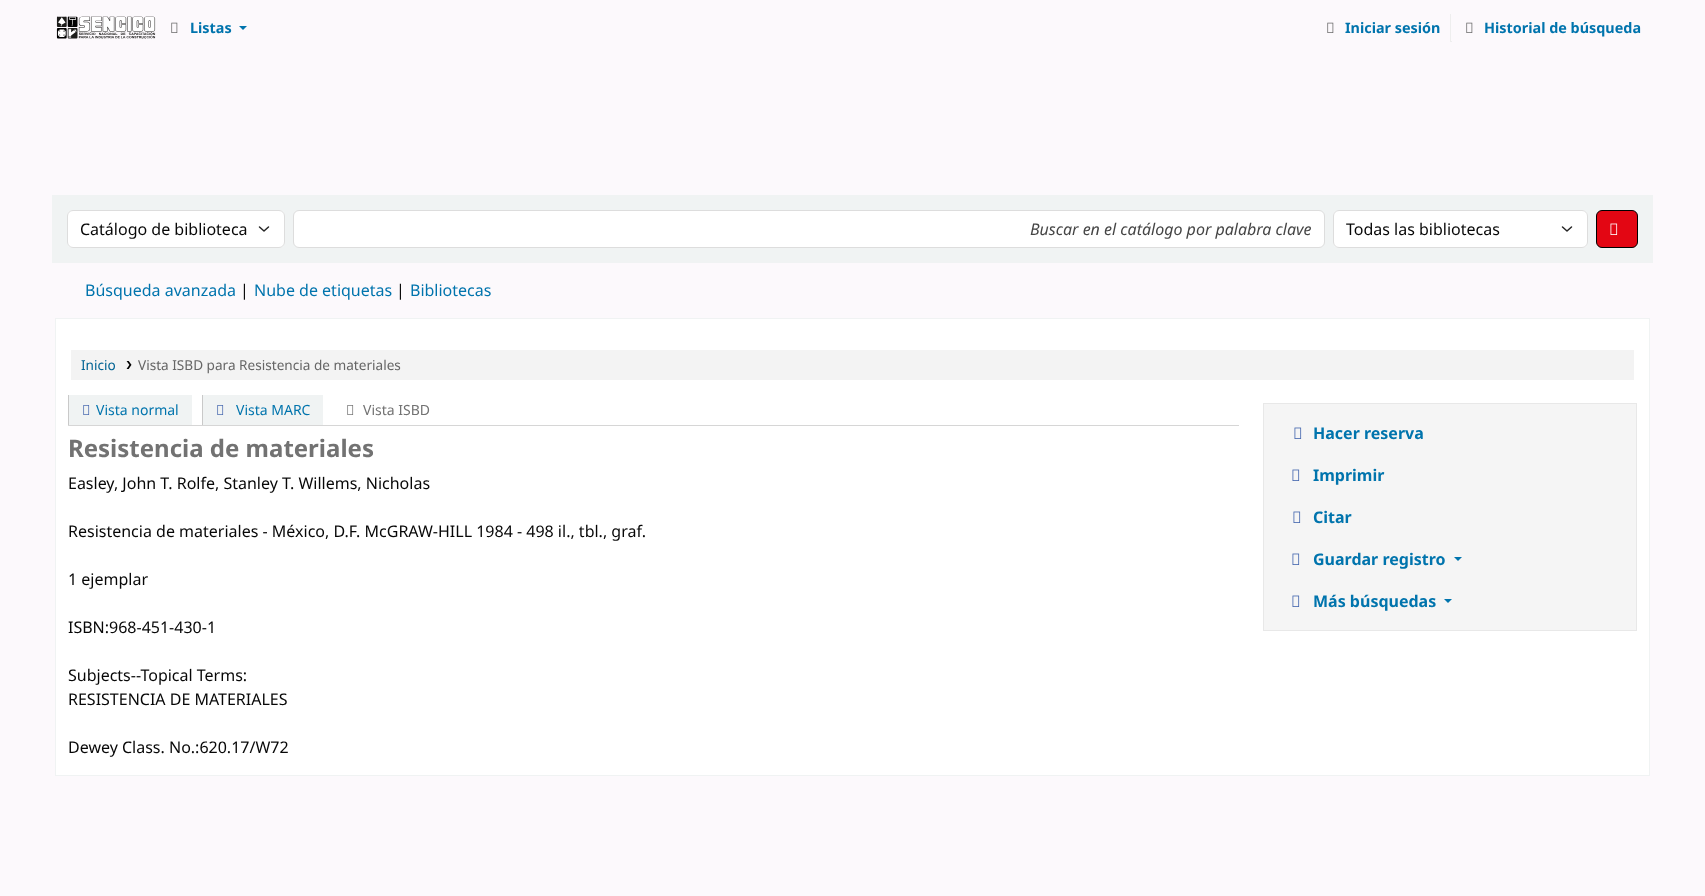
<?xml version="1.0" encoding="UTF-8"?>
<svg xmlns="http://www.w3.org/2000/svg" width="1705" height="896">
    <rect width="100%" height="100%" fill="#FCF9FC"/>
    <image x="56" y="16" width="100" height="23" href="img_01.png"/>
    <image x="171" y="22" width="7" height="11" href="img_02.png"/>
    <text x="190" y="33" font-family="Noto Sans" font-size="14.4" font-weight="700" fill="#0074AD">Listas</text>
    <path d="M 239 26 H 247 L 243 30 Z" fill="#0074AD"/>
    <image x="1327" y="22" width="7" height="11" href="img_02.png"/>
    <text x="1345" y="33" font-family="Noto Sans" font-size="14.4" font-weight="700" fill="#0074AD">Iniciar sesión</text>
    <rect x="1450" y="41" width="2" height="1" fill="#EEEEEE"/>
    <rect x="1450" y="14" width="1" height="28" fill="#EEEEEE"/>
    <image x="1466" y="22" width="7" height="11" href="img_02.png"/>
    <text x="1484" y="33" font-family="Noto Sans" font-size="14.4" font-weight="700" fill="#0074AD">Historial de búsqueda</text>
    <rect x="52" y="195" width="1601" height="68" fill="#F0F3F3"/>
    <rect x="67" y="210" width="218" height="38" rx="6" fill="#FFFFFF"/>
    <path d="M 259.5 227 L 264 231 L 268.5 227" fill="none" stroke="#252525" stroke-width="1.5" stroke-linecap="round" stroke-linejoin="round"/>
    <rect x="67.5" y="210.5" width="217" height="37" rx="5.5" fill="none" stroke="#DDDDDD"/>
    <text x="80" y="235" font-family="Noto Sans" font-size="16" fill="#070707">Catálogo de biblioteca</text>
    <rect x="293.5" y="210.5" width="1031" height="37" rx="5.5" fill="#FFFFFF" stroke="#DDDDDD"/>
    <text x="1030" y="235" font-family="Noto Sans" font-size="16" font-style="italic" fill="#454545">Buscar en el catálogo por palabra clave</text>
    <rect x="1333" y="210" width="255" height="38" rx="6" fill="#FFFFFF"/>
    <path d="M 1562.5 227 L 1567 231 L 1571.5 227" fill="none" stroke="#252525" stroke-width="1.5" stroke-linecap="round" stroke-linejoin="round"/>
    <rect x="1333.5" y="210.5" width="254" height="37" rx="5.5" fill="none" stroke="#DDDDDD"/>
    <text x="1346" y="235" font-family="Noto Sans" font-size="16" fill="#070707">Todas las bibliotecas</text>
    <rect x="1596.5" y="210.5" width="41" height="37" rx="5.5" fill="#E30613" stroke="#000000"/>
    <image x="1610" y="223" width="8" height="12" href="img_03.png"/>
    <text x="85" y="296" font-family="Noto Sans" font-size="16" fill="#0074AD">Búsqueda avanzada</text>
    <text x="240" y="296" font-family="Noto Sans" font-size="16" fill="#070707">|</text>
    <text x="254" y="296" font-family="Noto Sans" font-size="16" fill="#0074AD">Nube de etiquetas</text>
    <text x="396" y="296" font-family="Noto Sans" font-size="16" fill="#070707">|</text>
    <text x="410" y="296" font-family="Noto Sans" font-size="16" fill="#0074AD">Bibliotecas</text>
    <rect x="55.5" y="318.5" width="1594" height="457" fill="#FFFFFF" stroke="#F0F3F3"/>
    <rect x="71" y="350" width="1563" height="30" fill="#F3F3F3"/>
    <text x="81" y="370" font-family="Noto Sans" font-size="13.6" fill="#006394">Inicio</text>
    <image x="126" y="361" width="6" height="8" href="img_04.png"/>
    <text x="138" y="370" font-family="Noto Sans" font-size="13.6" fill="#666666">Vista ISBD para Resistencia de materiales</text>
    <rect x="68" y="425" width="1171" height="1" fill="#D6D6D6"/>
    <rect x="69" y="395" width="123" height="30" fill="#F0F3F3"/>
    <rect x="68" y="395" width="1" height="30" fill="#C9C9C9"/>
    <image x="83" y="405" width="7" height="10" href="img_05.png"/>
    <text x="96" y="415" font-family="Noto Sans" font-size="14" fill="#0074AD">Vista normal</text>
    <rect x="203" y="395" width="120" height="30" fill="#F0F3F3"/>
    <rect x="202" y="395" width="1" height="30" fill="#C9C9C9"/>
    <image x="217" y="405" width="7" height="10" href="img_05.png"/>
    <text x="236" y="415" font-family="Noto Sans" font-size="14" fill="#0074AD">Vista MARC</text>
    <image x="347" y="405" width="7" height="10" href="img_06.png"/>
    <text x="363" y="415" font-family="Noto Sans" font-size="14" fill="#727272">Vista ISBD</text>
    <text x="68" y="457" font-family="Noto Sans" font-size="24" font-weight="700" fill="#727272">Resistencia de materiales</text>
    <text x="68" y="489" font-family="Noto Sans" font-size="16" fill="#070707">Easley, John T. Rolfe, Stanley T. Willems, Nicholas</text>
    <text x="68" y="537" font-family="Noto Sans" font-size="16" fill="#070707">Resistencia de materiales - México, D.F. McGRAW-HILL 1984 - 498 il., tbl., graf.</text>
    <text x="68" y="585" font-family="Noto Sans" font-size="16" fill="#070707">1 ejemplar</text>
    <text x="68" y="633" font-family="Noto Sans" font-size="16" fill="#070707">ISBN:968-451-430-1</text>
    <text font-family="Noto Sans" font-size="16" fill="#070707">
        <tspan x="68" y="681">Subjects--Topical Terms:</tspan>
        <tspan x="68" y="705">RESISTENCIA DE MATERIALES</tspan>
    </text>
    <text x="68" y="753" font-family="Noto Sans" font-size="16" fill="#070707">Dewey Class. No.:620.17/W72</text>
    <rect x="1263.5" y="403.5" width="373" height="227" fill="#F5F5F5" stroke="#E8E8E8"/>
    <image x="1294" y="427" width="8" height="12" href="img_07.png"/>
    <text x="1313" y="439" font-family="Noto Sans" font-size="16" font-weight="700" fill="#0074AD">Hacer reserva</text>
    <image x="1292" y="469" width="8" height="12" href="img_07.png"/>
    <text x="1313" y="481" font-family="Noto Sans" font-size="16" font-weight="700" fill="#0074AD">Imprimir</text>
    <image x="1293" y="511" width="8" height="12" href="img_07.png"/>
    <text x="1313" y="523" font-family="Noto Sans" font-size="16" font-weight="700" fill="#0074AD">Citar</text>
    <image x="1292" y="553" width="8" height="12" href="img_07.png"/>
    <text x="1313" y="565" font-family="Noto Sans" font-size="16" font-weight="700" fill="#0074AD">Guardar registro</text>
    <path d="M 1454 557 H 1462 L 1458 561 Z" fill="#0074AD"/>
    <image x="1292" y="595" width="8" height="12" href="img_07.png"/>
    <text x="1313" y="607" font-family="Noto Sans" font-size="16" font-weight="700" fill="#0074AD">Más búsquedas</text>
    <path d="M 1444 599 H 1452 L 1448 603 Z" fill="#0074AD"/>
</svg>
